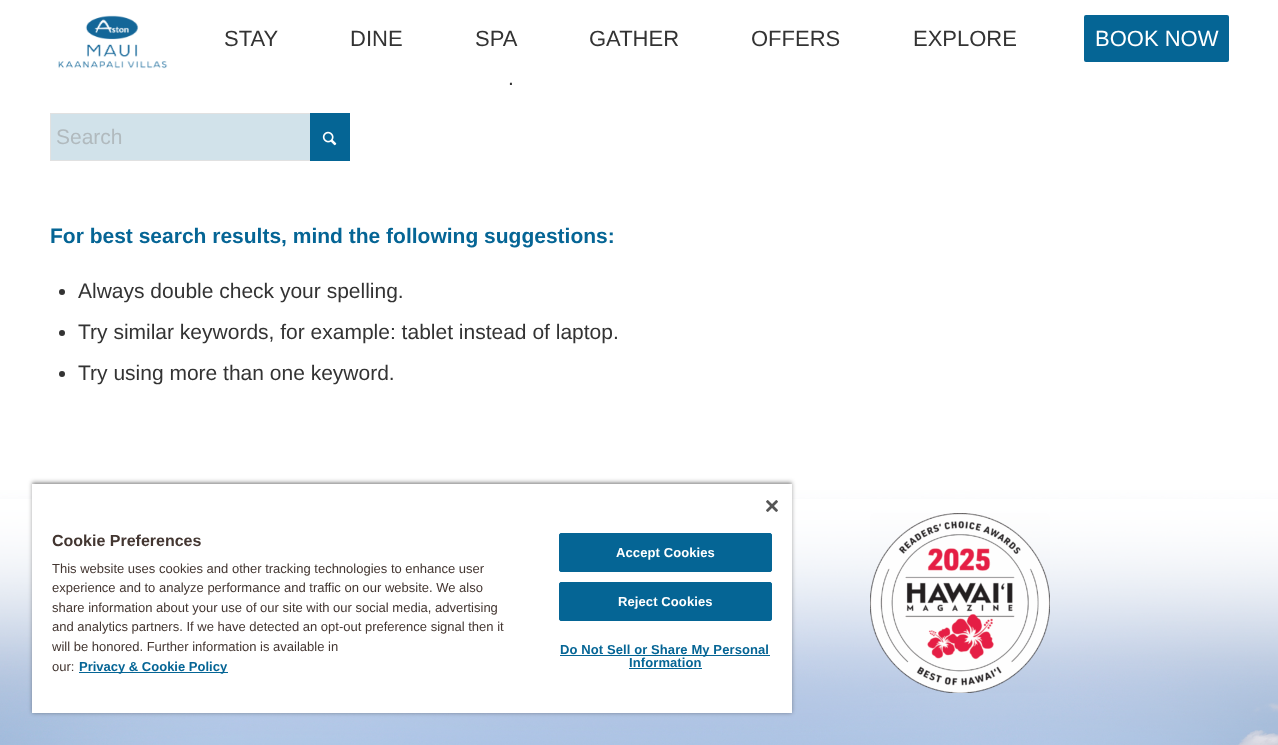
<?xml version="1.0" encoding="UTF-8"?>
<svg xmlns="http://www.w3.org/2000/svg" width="1278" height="745">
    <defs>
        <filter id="blur1" x="-50%" y="-200%" width="200%" height="500%"><feGaussianBlur stdDeviation="2"/></filter>
        <clipPath id="clip1"><rect x="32" y="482" width="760" height="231"/></clipPath>
    </defs>
    <rect width="100%" height="100%" fill="#FFFFFF"/>
    <image x="58" y="15" width="110" height="54" href="img_01.png"/>
    <text x="224" y="46" font-family="Liberation Sans" font-size="22" fill="#333333">STAY</text>
    <text x="350" y="46" font-family="Liberation Sans" font-size="22" fill="#333333">DINE</text>
    <text x="475" y="46" font-family="Liberation Sans" font-size="22" fill="#333333">SPA</text>
    <text x="589" y="46" font-family="Liberation Sans" font-size="22" fill="#333333">GATHER</text>
    <text x="751" y="46" font-family="Liberation Sans" font-size="22" fill="#333333">OFFERS</text>
    <text x="913" y="46" font-family="Liberation Sans" font-size="22" fill="#333333">EXPLORE</text>
    <rect x="1085" y="16" width="143" height="45" rx="1" fill="#056595" stroke="#056595" stroke-width="2"/>
    <text x="1095" y="46" font-family="Liberation Sans" font-size="22" fill="#FFFFFF">BOOK NOW</text>
    <text x="508" y="85" font-family="Liberation Sans" font-size="21" fill="#333333">.</text>
    <rect x="51" y="114" width="259" height="46" fill="#D1E2EA"/>
    <rect x="50.5" y="113.5" width="299" height="47" fill="none" stroke="#E1E1E1"/>
    <text x="56" y="144" font-family="Liberation Sans" font-size="21" fill="#B1BABE">Search</text>
    <rect x="310" y="113" width="40" height="48" fill="#056595"/>
    <image x="322" y="131" width="15" height="15" href="img_02.png"/>
    <text x="50" y="243" font-family="Liberation Sans" font-size="21" font-weight="700" fill="#056595">For best search results, mind the following suggestions:</text>
    <circle cx="62" cy="292" r="3" fill="#333333"/>
    <text x="78" y="298" font-family="Liberation Sans" font-size="21" fill="#333333">Always double check your spelling.</text>
    <circle cx="62" cy="333" r="3" fill="#333333"/>
    <text x="78" y="339" font-family="Liberation Sans" font-size="21" fill="#333333">Try similar keywords, for example: tablet instead of laptop.</text>
    <circle cx="62" cy="374" r="3" fill="#333333"/>
    <text x="78" y="380" font-family="Liberation Sans" font-size="21" fill="#333333">Try using more than one keyword.</text>
    <image x="0" y="463" width="1278" height="282" href="img_03.png"/>
    <image x="0" y="499" width="1278" height="246" href="img_04.png"/>
    <image x="870" y="513" width="180" height="180" href="img_05.png"/>
    <rect x="32" y="482" width="760" height="231" fill="#000000" fill-opacity="0.35" filter="url(#blur1)"/>
    <g clip-path="url(#clip1)">
        <rect x="32" y="484" width="760" height="229" fill="#000000" fill-opacity="0.2" filter="url(#blur1)"/>
    </g>
    <rect x="32" y="484" width="760" height="229" fill="#FFFFFF"/>
    <image x="766" y="500" width="12" height="12" href="img_06.png"/>
    <text x="52" y="546" font-family="Liberation Sans" font-size="16" font-weight="700" fill="#433631">Cookie Preferences</text>
    <text font-family="Liberation Sans" font-size="13" fill="#433631">
        <tspan x="52" y="573">This website uses cookies and other tracking technologies to enhance user</tspan>
        <tspan x="52" y="592">experience and to analyze performance and traffic on our website. We also</tspan>
        <tspan x="52" y="612">share information about your use of our site with our social media, advertising</tspan>
        <tspan x="52" y="631">and analytics partners. If we have detected an opt-out preference signal then it</tspan>
        <tspan x="52" y="651">will be honored. Further information is available in</tspan>
        <tspan x="52" y="671">our:</tspan>
    </text>
    <rect x="79" y="672" width="149" height="1" fill="#056595"/>
    <text x="79" y="671" font-family="Liberation Sans" font-size="13" font-weight="700" fill="#056595">Privacy &amp; Cookie Policy</text>
    <rect x="559.5" y="533.5" width="212" height="38" rx="1.5" fill="#056595" stroke="#056595"/>
    <text x="616" y="557" font-family="Liberation Sans" font-size="13" font-weight="700" letter-spacing="0.1" fill="#FFFFFF">Accept Cookies</text>
    <rect x="559.5" y="582.5" width="212" height="38" rx="1.5" fill="#056595" stroke="#056595"/>
    <text x="618" y="606" font-family="Liberation Sans" font-size="13" font-weight="700" letter-spacing="0.1" fill="#FFFFFF">Reject Cookies</text>
    <rect x="560" y="655" width="210" height="1" fill="#056595"/>
    <text x="560" y="654" font-family="Liberation Sans" font-size="13" font-weight="700" letter-spacing="0.1" fill="#056595">Do Not Sell or Share My Personal</text>
    <text x="629" y="667" font-family="Liberation Sans" font-size="13" font-weight="700" letter-spacing="0.1" fill="#056595">Information</text>
    <rect x="629" y="668" width="73" height="1" fill="#056595"/>
</svg>
